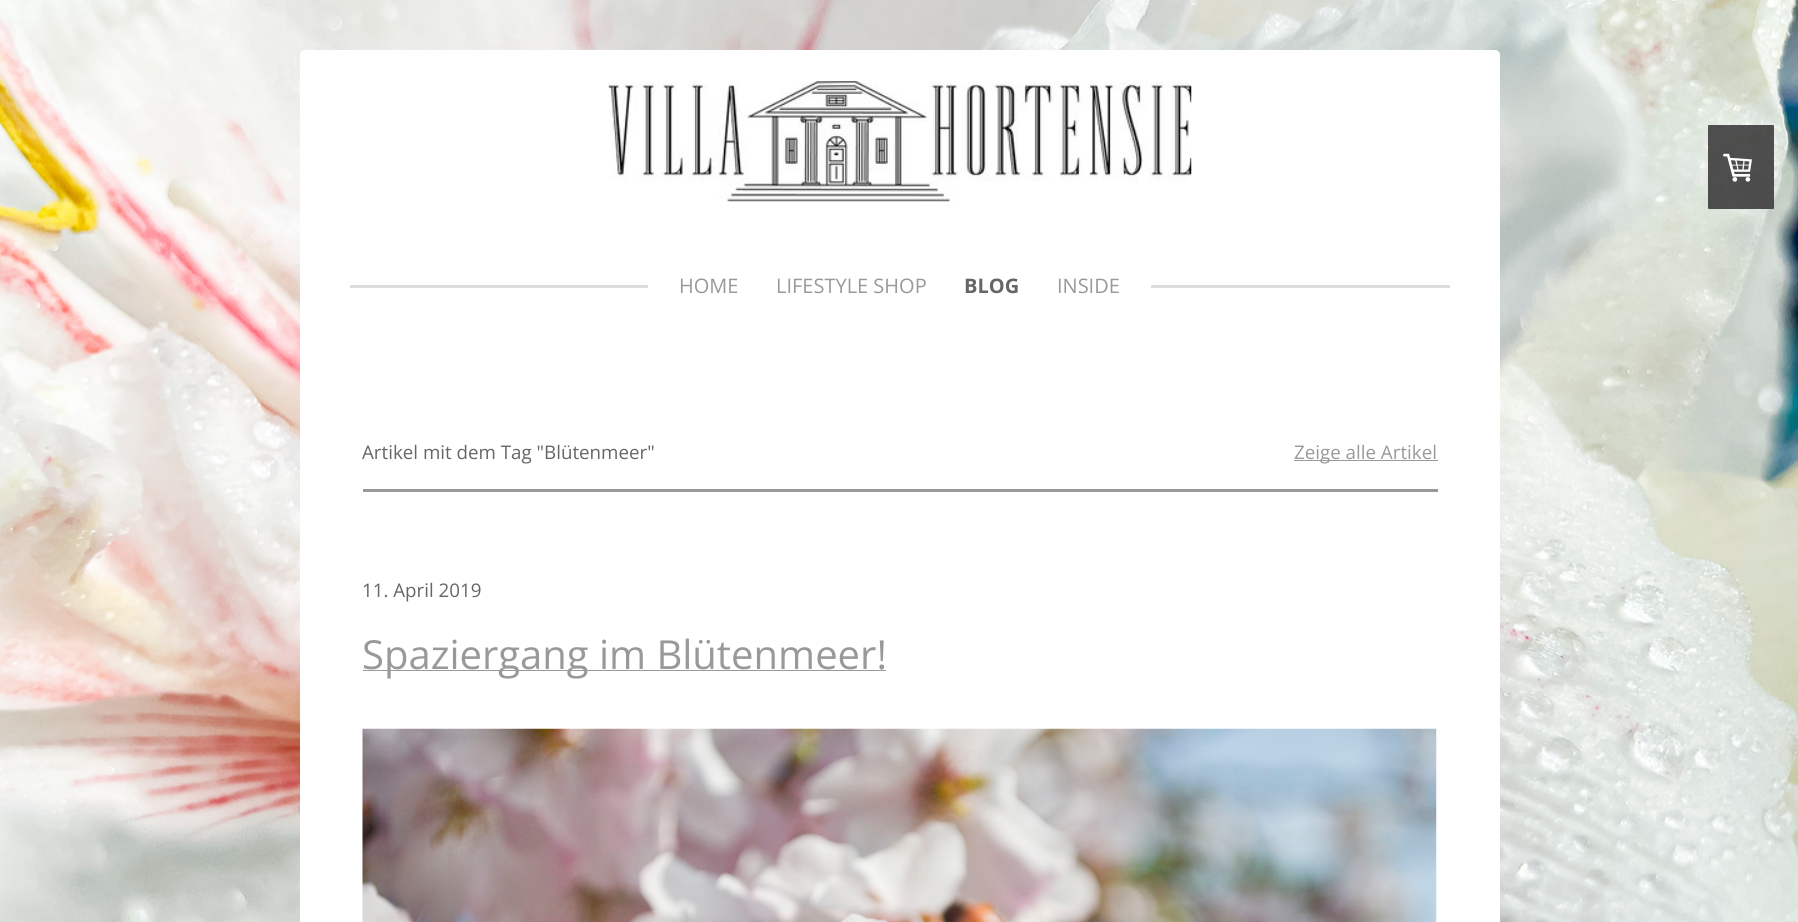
import math
import cairocffi as cairo

surface = cairo.ImageSurface(cairo.FORMAT_RGB24, 1798, 922)
ctx = cairo.Context(surface)
options = cairo.FontOptions()
options.set_hint_metrics(cairo.HINT_METRICS_OFF)
options.set_hint_style(cairo.HINT_STYLE_NONE)
ctx.set_font_options(options)
ctx.set_miter_limit(4)


def rgb(r, g, b):
    ctx.set_source_rgb(r / 255, g / 255, b / 255)


def face(family, size, italic, bold):
    ctx.select_font_face(family, cairo.FONT_SLANT_ITALIC if italic else cairo.FONT_SLANT_NORMAL, cairo.FONT_WEIGHT_BOLD if bold else cairo.FONT_WEIGHT_NORMAL)
    ctx.set_font_size(size)


def label(x, y, s):
    ctx.move_to(x, y)
    ctx.show_text(s)


def rect(x, y, w, h):
    ctx.rectangle(x, y, w, h)
    ctx.fill()


def rrect(x, y, w, h, r):
    ctx.new_sub_path()
    for i, (u, v) in enumerate([(x + w - r, y + h - r), (x + r, y + h - r), (x + r, y + r), (x + w - r, y + r)]):
        ctx.arc(u, v, r, i * math.pi / 2, (i + 1) * math.pi / 2)
    ctx.close_path()


def image(path, x, y, w, h):
    ctx.save()
    ctx.set_source_surface(cairo.ImageSurface.create_from_png(path), x, y)
    ctx.rectangle(x, y, w, h)
    ctx.fill()
    ctx.restore()


rgb(255, 255, 255)
ctx.paint()
image('image0.png', 0, 0, 1798, 922)
rgb(255, 255, 255)
rrect(300, 50, 1200, 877, 5)
ctx.fill()
ctx.set_source_rgba(0.2, 0.2, 0.2, 0.85)
rrect(1708, 125, 66, 84, 1)
ctx.fill()
image('image1.png', 1723, 153, 29, 29)
image('image2.png', 608, 81, 584, 121)
rgb(221, 221, 221)
rect(350, 285, 1100, 3)
rgb(255, 255, 255)
rect(648, 285, 503, 3)
face('Open Sans', 20, 0, 0)
rgb(153, 153, 153)
label(679, 293, 'HOME')
label(776, 293, 'LIFESTYLE SHOP')
face('Open Sans', 20, 0, 1)
rgb(102, 102, 102)
label(964, 293, 'BLOG')
face('Open Sans', 20, 0, 0)
rgb(153, 153, 153)
label(1057, 293, 'INSIDE')
face('Open Sans', 18.75, 0, 0)
rgb(102, 102, 102)
label(362, 459, 'Artikel mit dem Tag "Blütenmeer"')
rgb(153, 153, 153)
rect(1294, 460, 144, 1)
label(1294, 459, 'Zeige alle Artikel')
rect(363, 489, 1075, 3)
rgb(102, 102, 102)
label(362, 597, '11. April 2019')
rgb(153, 153, 153)
rect(363, 670, 523, 1)
face('Open Sans', 40, 0, 0)
label(362, 669, 'Spaziergang im Blütenmeer!')
image('image3.png', 362, 728, 1075, 194)
surface.write_to_png('render.png')
